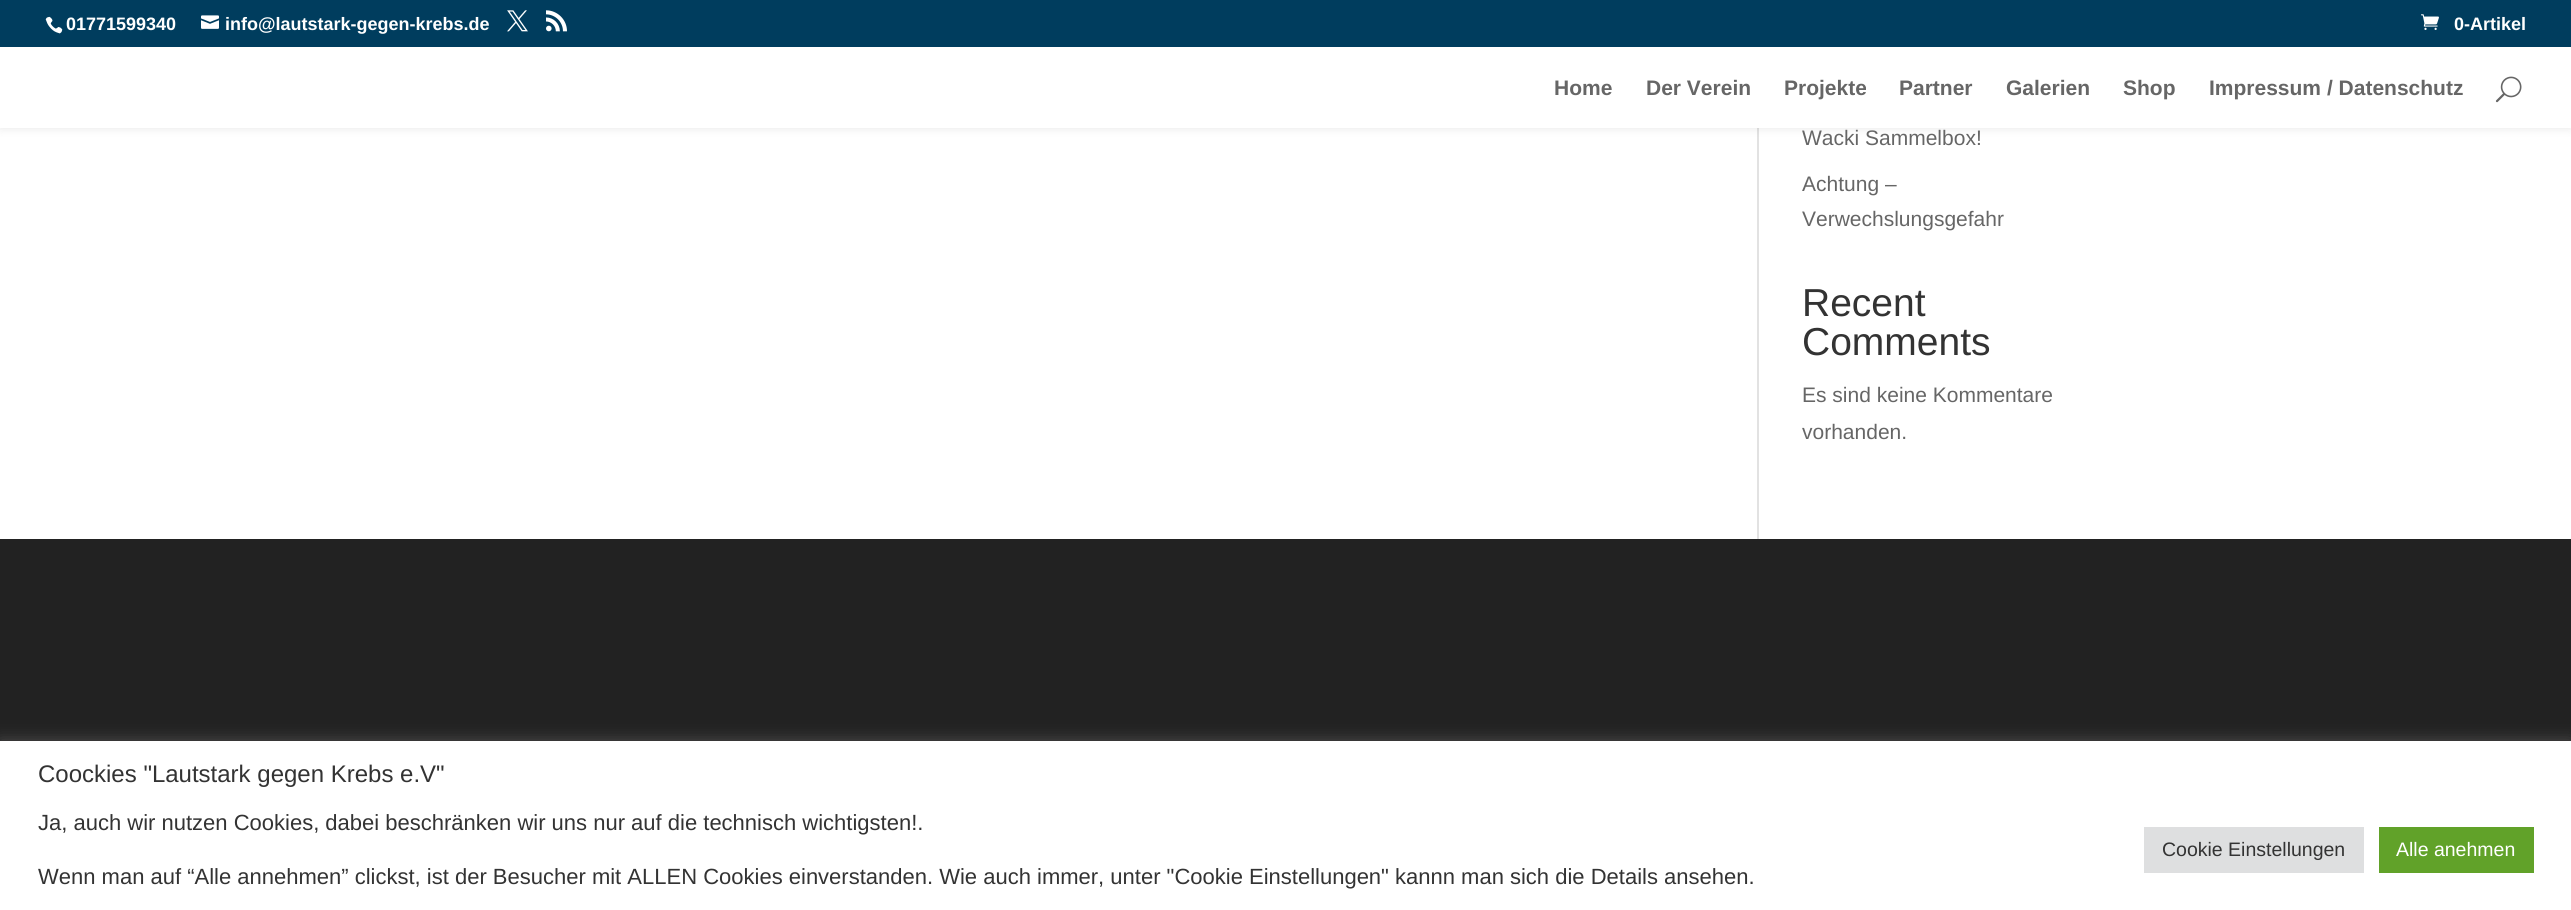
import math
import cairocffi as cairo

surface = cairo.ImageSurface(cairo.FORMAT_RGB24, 2571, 910)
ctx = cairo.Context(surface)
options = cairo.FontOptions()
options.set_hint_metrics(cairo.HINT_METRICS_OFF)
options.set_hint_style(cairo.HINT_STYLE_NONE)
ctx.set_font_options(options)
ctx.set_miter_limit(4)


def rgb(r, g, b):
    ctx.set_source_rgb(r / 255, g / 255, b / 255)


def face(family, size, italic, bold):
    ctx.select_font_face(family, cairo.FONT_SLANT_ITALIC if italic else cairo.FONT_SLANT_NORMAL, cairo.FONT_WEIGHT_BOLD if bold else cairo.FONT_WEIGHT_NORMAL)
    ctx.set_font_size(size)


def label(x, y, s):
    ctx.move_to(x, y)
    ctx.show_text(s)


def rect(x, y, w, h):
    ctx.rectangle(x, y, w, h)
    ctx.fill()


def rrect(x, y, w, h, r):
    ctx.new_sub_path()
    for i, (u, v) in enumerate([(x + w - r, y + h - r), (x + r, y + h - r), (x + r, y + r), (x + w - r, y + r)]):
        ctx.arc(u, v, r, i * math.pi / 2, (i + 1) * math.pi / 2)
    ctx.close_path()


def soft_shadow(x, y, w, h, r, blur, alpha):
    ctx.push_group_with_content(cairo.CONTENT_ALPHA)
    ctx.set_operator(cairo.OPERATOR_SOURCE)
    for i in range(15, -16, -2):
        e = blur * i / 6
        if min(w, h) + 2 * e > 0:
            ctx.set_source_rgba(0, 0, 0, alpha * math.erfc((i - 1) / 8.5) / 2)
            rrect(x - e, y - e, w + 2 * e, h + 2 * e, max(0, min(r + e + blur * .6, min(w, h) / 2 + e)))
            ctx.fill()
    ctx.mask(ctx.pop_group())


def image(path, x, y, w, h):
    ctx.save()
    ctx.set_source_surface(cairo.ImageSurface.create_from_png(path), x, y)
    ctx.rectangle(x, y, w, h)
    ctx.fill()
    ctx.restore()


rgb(255, 255, 255)
ctx.paint()
rgb(226, 226, 226)
rect(1757, 128, 2, 411)
rgb(0, 0, 0)
soft_shadow(0, 47, 2571, 81, 0, 5, 0.1)
rgb(0, 61, 94)
rect(0, 0, 2571, 47)
image('image0.png', 45, 16, 18, 18)
face('Liberation Sans', 18, 0, 1)
rgb(255, 255, 255)
label(66, 30, '01771599340')
image('image1.png', 201, 15, 18, 14)
label(225, 30, 'info@lautstark-gegen-krebs.de')
image('image2.png', 507, 10, 21, 22)
image('image3.png', 546, 10, 21, 22)
image('image4.png', 2421, 14, 18, 16)
label(2454, 30, '0-Artikel')
rect(0, 47, 2571, 81)
face('Liberation Sans', 21, 0, 1)
rgb(102, 102, 102)
label(1554, 95, 'Home')
label(1646, 95, 'Der Verein')
label(1784, 95, 'Projekte')
label(1899, 95, 'Partner')
label(2006, 95, 'Galerien')
label(2123, 95, 'Shop')
label(2209, 95, 'Impressum / Datenschutz')
image('image5.png', 2495, 76, 27, 27)
face('Liberation Sans', 21, 0, 0)
label(1802, 145, 'Wacki Sammelbox!')
label(1802, 191, 'Achtung –')
label(1802, 226, 'Verwechslungsgefahr')
face('Liberation Sans', 39, 0, 0)
rgb(51, 51, 51)
label(1802, 316, 'Recent')
label(1802, 355, 'Comments')
face('Liberation Sans', 21, 0, 0)
rgb(102, 102, 102)
label(1802, 402, 'Es sind keine Kommentare')
label(1802, 439, 'vorhanden.')
rgb(34, 34, 34)
rect(0, 539, 2571, 202)
rgb(172, 171, 171)
soft_shadow(0, 740, 2571, 169, 0, 7.5, 0.3)
rgb(255, 255, 255)
rect(0, 741, 2571, 169)
face('Liberation Sans', 24, 0, 0)
rgb(51, 51, 51)
label(38, 782, 'Coockies "Lautstark gegen Krebs e.V"')
face('Liberation Sans', 22, 0, 0)
label(38, 830, 'Ja, auch wir nutzen Cookies, dabei beschränken wir uns nur auf die technisch wichtigsten!.')
label(38, 884, 'Wenn man auf “Alle annehmen” clickst, ist der Besucher mit ALLEN Cookies einverstanden. Wie auch immer, unter "Cookie Einstellungen" kannn man sich die Details ansehen.')
rgb(222, 223, 224)
rect(2144, 827, 220, 46)
face('Liberation Sans', 19.5, 0, 0)
rgb(51, 51, 51)
label(2162, 856, 'Cookie Einstellungen')
rgb(97, 162, 41)
rect(2379, 827, 155, 46)
rgb(255, 255, 255)
label(2396, 856, 'Alle anehmen')
surface.write_to_png('render.png')
